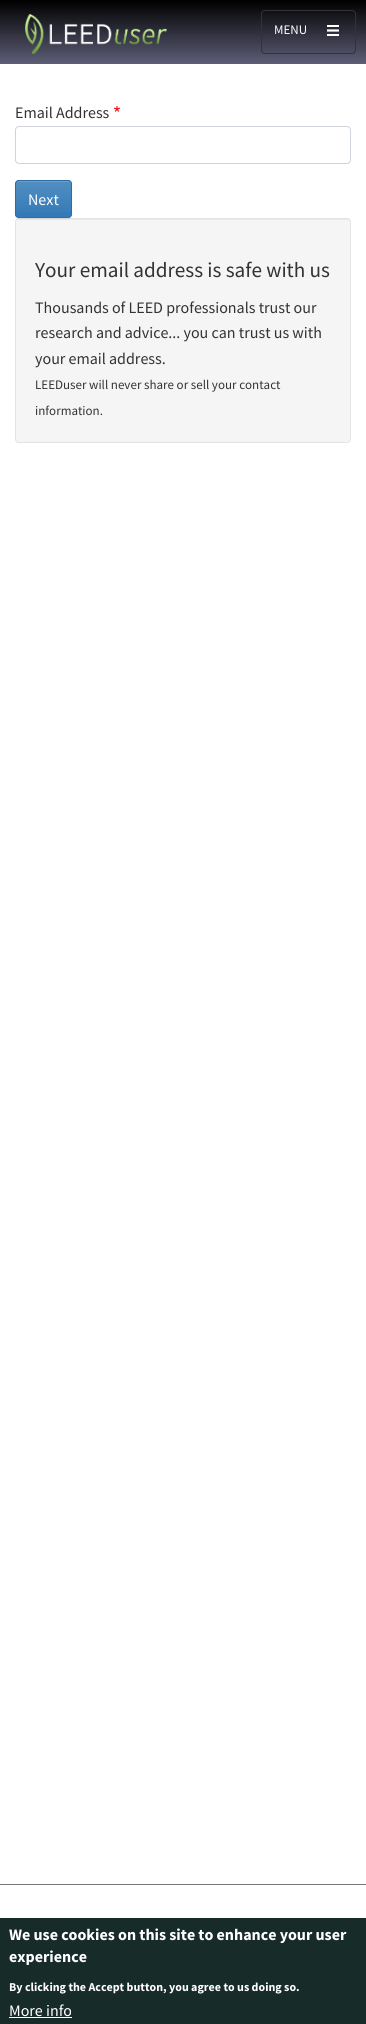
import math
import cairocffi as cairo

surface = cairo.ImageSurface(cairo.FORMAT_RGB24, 366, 2024)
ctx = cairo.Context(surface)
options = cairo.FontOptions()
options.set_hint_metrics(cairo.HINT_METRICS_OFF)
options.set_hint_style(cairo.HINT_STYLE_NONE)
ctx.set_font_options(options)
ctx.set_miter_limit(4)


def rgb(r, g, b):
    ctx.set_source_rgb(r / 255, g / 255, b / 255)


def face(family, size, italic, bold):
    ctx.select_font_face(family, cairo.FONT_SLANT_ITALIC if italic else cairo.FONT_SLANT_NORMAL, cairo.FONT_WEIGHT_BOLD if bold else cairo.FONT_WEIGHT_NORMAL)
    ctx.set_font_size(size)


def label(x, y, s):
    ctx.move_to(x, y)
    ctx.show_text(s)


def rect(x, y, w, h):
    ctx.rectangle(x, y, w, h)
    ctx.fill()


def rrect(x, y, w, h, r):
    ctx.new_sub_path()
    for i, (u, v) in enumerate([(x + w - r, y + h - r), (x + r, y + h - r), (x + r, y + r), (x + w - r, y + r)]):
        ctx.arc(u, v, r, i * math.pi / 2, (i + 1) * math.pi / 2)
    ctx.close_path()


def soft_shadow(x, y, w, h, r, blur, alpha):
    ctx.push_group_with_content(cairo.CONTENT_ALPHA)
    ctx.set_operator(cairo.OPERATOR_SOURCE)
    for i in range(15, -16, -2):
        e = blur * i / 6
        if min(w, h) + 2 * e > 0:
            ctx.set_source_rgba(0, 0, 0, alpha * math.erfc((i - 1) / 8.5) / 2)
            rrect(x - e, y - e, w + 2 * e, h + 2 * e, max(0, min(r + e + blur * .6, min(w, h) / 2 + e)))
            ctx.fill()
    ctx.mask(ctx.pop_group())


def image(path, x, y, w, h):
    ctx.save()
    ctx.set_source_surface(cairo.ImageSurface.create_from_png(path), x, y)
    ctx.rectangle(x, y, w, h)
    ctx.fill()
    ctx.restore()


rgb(255, 255, 255)
ctx.paint()
gradient = cairo.LinearGradient(183, 0, 183, 64)
gradient.add_color_stop_rgba(0, 0, 0, 0, 1)
gradient.add_color_stop_rgba(1, 0.365, 0.365, 0.467, 1)
ctx.set_source(gradient)
rect(0, 0, 366, 64)
image('image0.png', 25, 14, 142, 40)
rrect(261.5, 10.5, 94, 43, 3.5)
rgb(51, 51, 51)
ctx.set_line_width(1)
ctx.stroke()
face('Source Sans Pro', 13, 0, 0)
rgb(255, 255, 255)
label(274, 34, 'MENU')
rect(327, 25, 12, 2)
ctx.save()
ctx.rectangle(327, 25, 12, 11)
ctx.clip()
ctx.new_path()
ctx.move_to(327, 30.5)
ctx.line_to(343, 30.5)
ctx.set_line_width(2.2)
ctx.stroke()
ctx.restore()
rect(327, 34, 12, 2)
face('Source Sans Pro', 16, 0, 0)
rgb(51, 51, 51)
label(15, 118, 'Email Address')
image('image1.png', 114, 106, 6, 6)
rrect(15.5, 126.5, 335, 37, 3.5)
rgb(206, 212, 218)
ctx.stroke()
rgb(245, 245, 245)
rrect(15, 218, 336, 225, 4)
ctx.fill()
rgb(233, 233, 233)
ctx.new_path()
ctx.move_to(19, 220)
ctx.line_to(347, 220)
ctx.curve_to(349, 220, 350, 221, 350, 223)
ctx.curve_to(350, 221, 349, 219, 347, 219)
ctx.line_to(19, 219)
ctx.curve_to(17, 219, 16, 221, 16, 223)
ctx.curve_to(16, 221, 17, 220, 19, 220)
ctx.close_path()
ctx.fill()
rrect(15.5, 218.5, 335, 224, 3.5)
rgb(227, 227, 227)
ctx.stroke()
rgb(0, 0, 0)
soft_shadow(15, 181, 57, 38, 4, 0.5, 0.07)
rgb(51, 122, 183)
rrect(15, 180, 57, 38, 4)
ctx.fill()
gradient = cairo.LinearGradient(44, 181, 44, 217)
gradient.add_color_stop_rgba(0, 1, 1, 1, 0.15)
gradient.add_color_stop_rgba(1, 1, 1, 1, 0)
ctx.set_source(gradient)
rect(15, 181, 57, 31)
rgb(107, 159, 203)
ctx.new_path()
ctx.move_to(19, 182)
ctx.line_to(68, 182)
ctx.curve_to(70, 182, 71, 183, 71, 185)
ctx.curve_to(71, 179, 64, 181, 60, 181)
ctx.line_to(27, 181)
ctx.curve_to(23, 181, 16, 179, 16, 185)
ctx.curve_to(16, 183, 17, 182, 19, 182)
ctx.close_path()
ctx.fill()
rrect(15.5, 180.5, 56, 37, 3.5)
rgb(46, 109, 164)
ctx.stroke()
rgb(255, 255, 255)
label(28, 205, 'Next')
face('Source Sans Pro', 21.2, 0, 0)
rgb(51, 51, 51)
label(35, 277, 'Your email address is safe with us')
face('Source Sans Pro', 16, 0, 0)
label(35, 313, 'Thousands of LEED professionals trust our')
label(35, 338, 'research and advice... you can trust us with')
label(35, 364, 'your email address.')
face('Source Sans Pro', 13, 0, 0)
label(35, 389, 'LEEDuser will never share or sell your contact')
label(35, 415, 'information.')
rgb(119, 119, 119)
rect(0, 1884, 366, 1)
rgb(23, 44, 41)
rect(0, 1918, 366, 106)
face('Source Sans Pro', 16, 0, 1)
rgb(255, 255, 255)
label(9, 1940, 'We use cookies on this site to enhance your user')
label(9, 1962, 'experience')
face('Source Sans Pro', 12, 0, 1)
label(9, 1991, 'By clicking the Accept button, you agree to us doing so.')
face('Source Sans Pro', 16, 0, 0)
label(9, 2016, 'More info')
rect(9, 2017, 63, 1)
surface.write_to_png('render.png')
